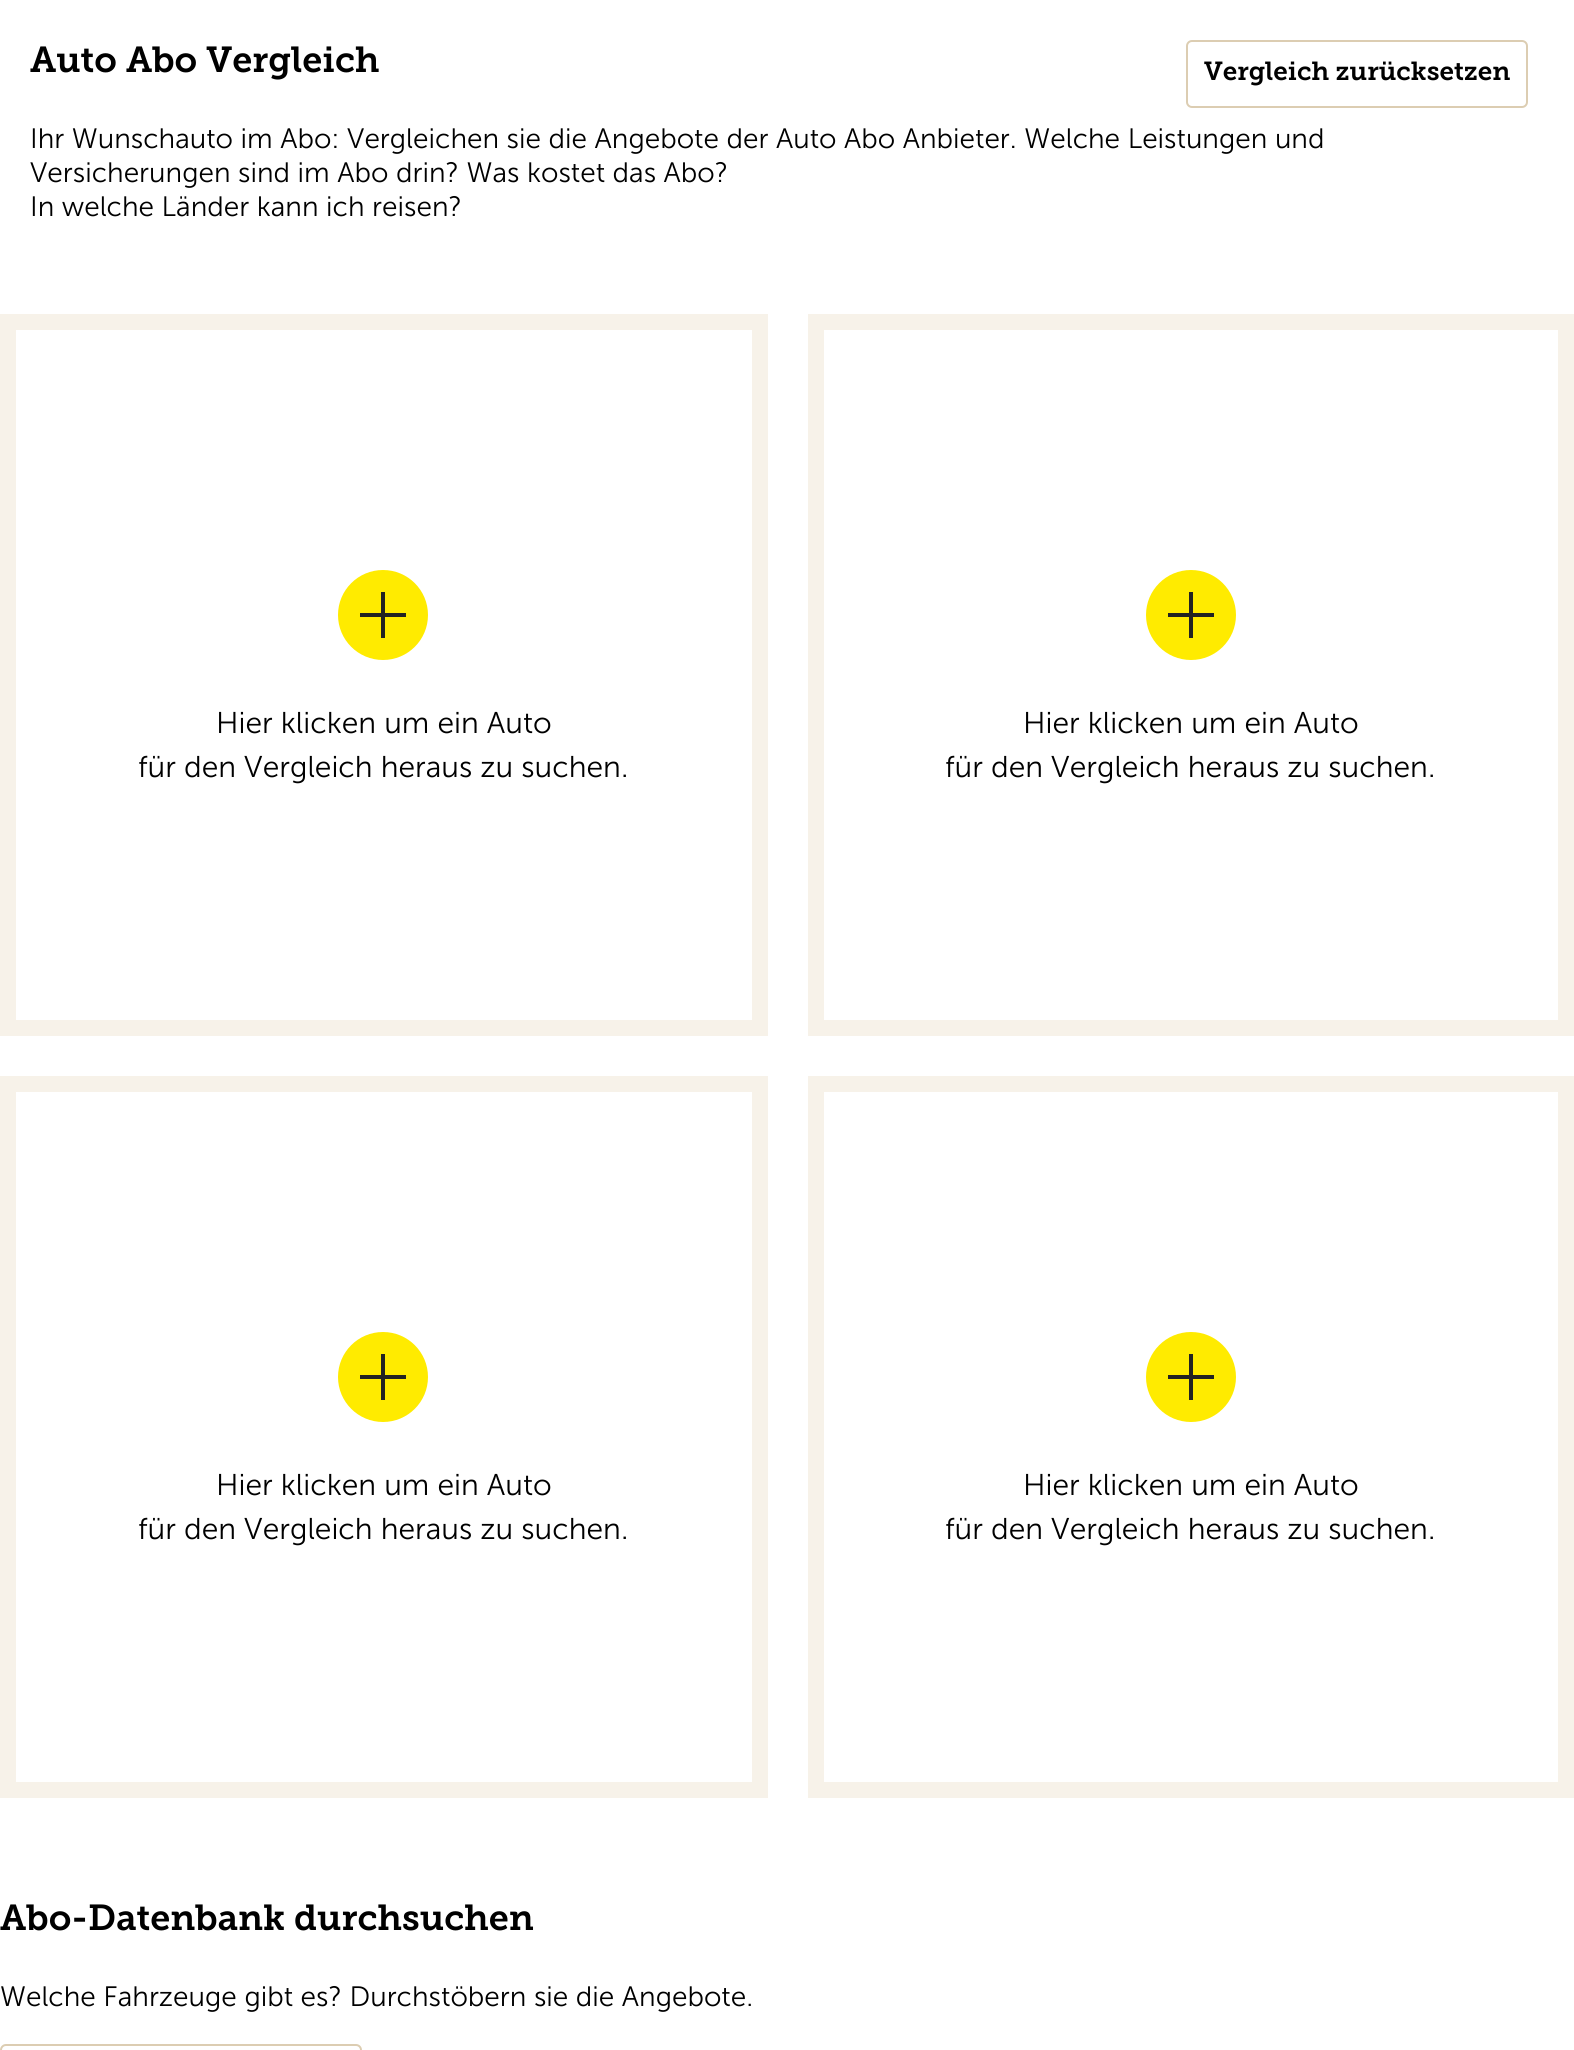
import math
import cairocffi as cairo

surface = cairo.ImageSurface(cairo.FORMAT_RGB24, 1574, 2050)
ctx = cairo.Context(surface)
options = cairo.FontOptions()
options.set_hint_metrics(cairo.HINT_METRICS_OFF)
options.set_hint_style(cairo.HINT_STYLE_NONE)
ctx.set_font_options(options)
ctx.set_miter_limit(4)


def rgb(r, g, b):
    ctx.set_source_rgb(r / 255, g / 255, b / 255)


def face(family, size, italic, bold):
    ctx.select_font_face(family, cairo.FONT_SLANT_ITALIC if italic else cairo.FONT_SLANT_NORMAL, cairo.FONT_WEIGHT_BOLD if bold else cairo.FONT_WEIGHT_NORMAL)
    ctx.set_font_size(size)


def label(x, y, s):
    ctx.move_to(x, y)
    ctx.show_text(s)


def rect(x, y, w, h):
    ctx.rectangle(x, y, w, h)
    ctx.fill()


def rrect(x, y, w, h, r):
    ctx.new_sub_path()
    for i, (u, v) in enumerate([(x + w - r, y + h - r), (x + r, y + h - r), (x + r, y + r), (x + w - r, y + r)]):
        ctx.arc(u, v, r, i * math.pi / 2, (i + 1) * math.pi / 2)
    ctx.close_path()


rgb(255, 255, 255)
ctx.paint()
face('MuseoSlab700', 36, 0, 0)
rgb(0, 0, 0)
label(30, 72, 'Auto Abo Vergleich')
rrect(1187, 41, 340, 66, 5)
rgb(220, 205, 178)
ctx.stroke()
face('MuseoSlab700', 26, 0, 0)
rgb(0, 0, 0)
label(1204, 80, 'Vergleich zurücksetzen')
face('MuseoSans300', 28, 0, 0)
label(30, 148, 'Ihr Wunschauto im Abo: Vergleichen sie die Angebote der Auto Abo Anbieter. Welche Leistungen und')
label(30, 182, 'Versicherungen sind im Abo drin? Was kostet das Abo?')
label(30, 216, 'In welche Länder kann ich reisen?')
ctx.rectangle(8, 322, 752, 706)
rgb(247, 242, 233)
ctx.set_line_width(16)
ctx.stroke()
rgb(255, 235, 0)
ctx.arc(383, 615, 45, 0, 2 * math.pi)
ctx.fill()
rgb(34, 34, 34)
rect(381, 592, 4, 46)
rect(360, 613, 46, 4)
face('MuseoSans300', 30, 0, 0)
rgb(0, 0, 0)
label(216, 733, 'Hier klicken um ein Auto')
label(138, 777, 'für den Vergleich heraus zu suchen.')
ctx.rectangle(816, 322, 750, 706)
rgb(247, 242, 233)
ctx.stroke()
rgb(255, 235, 0)
ctx.arc(1191, 615, 45, 0, 2 * math.pi)
ctx.fill()
rgb(34, 34, 34)
rect(1189, 592, 4, 46)
rect(1168, 613, 46, 4)
rgb(0, 0, 0)
label(1023, 733, 'Hier klicken um ein Auto')
label(945, 777, 'für den Vergleich heraus zu suchen.')
ctx.rectangle(8, 1084, 752, 706)
rgb(247, 242, 233)
ctx.stroke()
rgb(255, 235, 0)
ctx.arc(383, 1377, 45, 0, 2 * math.pi)
ctx.fill()
rgb(34, 34, 34)
rect(381, 1354, 4, 46)
rect(360, 1375, 46, 4)
rgb(0, 0, 0)
label(216, 1495, 'Hier klicken um ein Auto')
label(138, 1539, 'für den Vergleich heraus zu suchen.')
ctx.rectangle(816, 1084, 750, 706)
rgb(247, 242, 233)
ctx.stroke()
rgb(255, 235, 0)
ctx.arc(1191, 1377, 45, 0, 2 * math.pi)
ctx.fill()
rgb(34, 34, 34)
rect(1189, 1354, 4, 46)
rect(1168, 1375, 46, 4)
rgb(0, 0, 0)
label(1023, 1495, 'Hier klicken um ein Auto')
label(945, 1539, 'für den Vergleich heraus zu suchen.')
face('MuseoSlab700', 36, 0, 0)
label(0, 1930, 'Abo-Datenbank durchsuchen')
face('MuseoSans300', 28, 0, 0)
label(0, 2006, 'Welche Fahrzeuge gibt es? Durchstöbern sie die Angebote.')
rrect(1, 2045, 360, 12, 5)
rgb(220, 205, 178)
ctx.set_line_width(2)
ctx.stroke()
surface.write_to_png('render.png')
